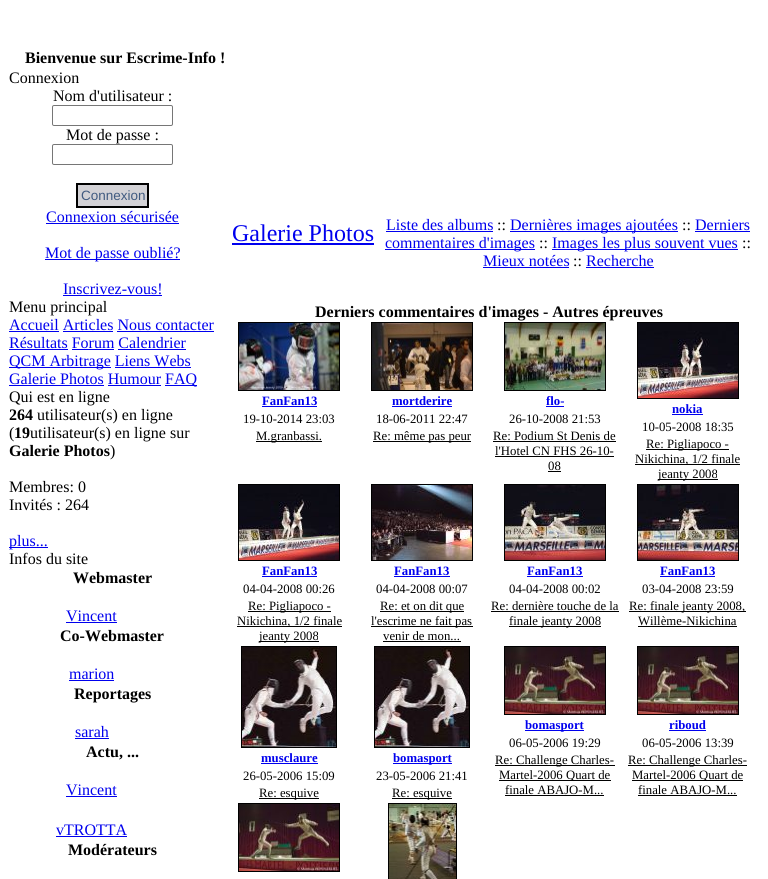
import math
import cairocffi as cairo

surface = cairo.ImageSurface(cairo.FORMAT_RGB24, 768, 879)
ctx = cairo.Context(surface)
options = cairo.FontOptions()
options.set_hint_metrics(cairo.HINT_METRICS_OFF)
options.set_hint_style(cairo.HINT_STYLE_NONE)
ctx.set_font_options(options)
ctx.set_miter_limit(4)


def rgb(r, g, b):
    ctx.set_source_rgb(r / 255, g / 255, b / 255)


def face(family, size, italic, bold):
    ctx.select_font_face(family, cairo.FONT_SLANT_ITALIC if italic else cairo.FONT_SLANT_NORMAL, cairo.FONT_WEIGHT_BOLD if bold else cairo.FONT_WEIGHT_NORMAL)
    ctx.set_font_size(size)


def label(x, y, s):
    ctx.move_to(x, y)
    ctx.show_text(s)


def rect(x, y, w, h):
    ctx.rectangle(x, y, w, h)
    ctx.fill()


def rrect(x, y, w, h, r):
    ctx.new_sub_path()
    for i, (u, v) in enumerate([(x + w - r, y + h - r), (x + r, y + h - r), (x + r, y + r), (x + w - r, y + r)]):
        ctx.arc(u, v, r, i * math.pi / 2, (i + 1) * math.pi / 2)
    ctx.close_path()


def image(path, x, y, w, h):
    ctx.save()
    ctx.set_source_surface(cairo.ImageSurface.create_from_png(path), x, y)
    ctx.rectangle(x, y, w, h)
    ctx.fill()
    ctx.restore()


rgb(255, 255, 255)
ctx.paint()
face('Liberation Serif', 16, 0, 1)
rgb(0, 0, 0)
label(25, 63, 'Bienvenue sur Escrime-Info !')
face('Liberation Serif', 16, 0, 0)
label(9, 83, 'Connexion')
label(53, 101, 'Nom d\'utilisateur :')
rrect(52.5, 105.5, 120, 20, 1.5)
rgb(118, 118, 118)
ctx.set_line_width(1)
ctx.stroke()
rgb(0, 0, 0)
label(66, 140, 'Mot de passe :')
rrect(52.5, 144.5, 120, 20, 1.5)
rgb(118, 118, 118)
ctx.stroke()
rgb(211, 210, 214)
ctx.rectangle(77, 184, 71, 23)
ctx.fill_preserve()
rgb(0, 0, 0)
ctx.set_line_width(2)
ctx.stroke()
face('Liberation Sans', 13.5, 0, 0)
rgb(64, 90, 128)
label(81, 200, 'Connexion')
face('Liberation Serif', 16, 0, 0)
rgb(0, 0, 238)
label(46, 222, 'Connexion sécurisée')
rect(46, 223, 133, 1)
rect(45, 259, 135, 1)
label(45, 258, 'Mot de passe oublié?')
label(63, 294, 'Inscrivez-vous!')
rect(63, 295, 99, 1)
rgb(0, 0, 0)
label(9, 312, 'Menu principal')
rgb(0, 0, 238)
label(9, 330, 'Accueil Articles Nous contacter')
rect(9, 331, 50, 1)
rect(63, 331, 50, 1)
rect(117, 331, 97, 1)
label(9, 348, 'Résultats Forum Calendrier')
rect(9, 349, 59, 1)
rect(72, 349, 42, 1)
rect(118, 349, 68, 1)
rect(9, 367, 102, 1)
label(9, 366, 'QCM Arbitrage Liens Webs')
rect(115, 367, 76, 1)
label(9, 384, 'Galerie Photos Humour')
rect(9, 385, 95, 1)
rect(165, 385, 32, 1)
label(165, 384, 'FAQ')
rect(108, 385, 53, 1)
rgb(0, 0, 0)
label(9, 402, 'Qui est en ligne')
face('Liberation Serif', 16, 0, 1)
label(9, 420, '264')
face('Liberation Serif', 16, 0, 0)
label(37, 420, 'utilisateur(s) en ligne')
label(9, 438, '(')
face('Liberation Serif', 16, 0, 1)
label(14, 438, '19')
face('Liberation Serif', 16, 0, 0)
label(30, 438, 'utilisateur(s) en ligne sur')
face('Liberation Serif', 16, 0, 1)
label(9, 456, 'Galerie Photos')
face('Liberation Serif', 16, 0, 0)
label(110, 456, ')')
label(9, 492, 'Membres: 0')
label(9, 510, 'Invités : 264')
rgb(0, 0, 238)
rect(9, 547, 39, 1)
label(9, 546, 'plus...')
rgb(0, 0, 0)
label(9, 564, 'Infos du site')
face('Liberation Serif', 16, 0, 1)
label(73, 583, 'Webmaster')
face('Liberation Serif', 16, 0, 0)
rgb(0, 0, 238)
label(66, 621, 'Vincent')
rect(66, 622, 51, 1)
face('Liberation Serif', 16, 0, 1)
rgb(0, 0, 0)
label(60, 641, 'Co-Webmaster')
face('Liberation Serif', 16, 0, 0)
rgb(0, 0, 238)
label(69, 679, 'marion')
rect(69, 680, 45, 1)
face('Liberation Serif', 16, 0, 1)
rgb(0, 0, 0)
label(74, 699, 'Reportages')
face('Liberation Serif', 16, 0, 0)
rgb(0, 0, 238)
label(75, 737, 'sarah')
rect(75, 738, 34, 1)
face('Liberation Serif', 16, 0, 1)
rgb(0, 0, 0)
label(86, 757, 'Actu, ...')
face('Liberation Serif', 16, 0, 0)
rgb(0, 0, 238)
label(66, 795, 'Vincent')
rect(66, 796, 51, 1)
label(56, 835, 'vTROTTA')
rect(56, 836, 71, 1)
face('Liberation Serif', 16, 0, 1)
rgb(0, 0, 0)
label(68, 855, 'Modérateurs')
face('Liberation Serif', 24, 0, 0)
rgb(0, 0, 238)
label(232, 241, 'Galerie Photos')
rect(232, 243, 142, 2)
face('Liberation Serif', 16, 0, 0)
label(386, 230, 'Liste des albums')
rect(386, 231, 107, 1)
rgb(0, 0, 0)
label(497, 230, '::')
rgb(0, 0, 238)
rect(510, 231, 168, 1)
label(510, 230, 'Dernières images ajoutées')
rgb(0, 0, 0)
label(682, 230, '::')
rgb(0, 0, 238)
label(695, 230, 'Derniers')
rect(695, 231, 55, 1)
rect(385, 249, 150, 1)
label(385, 248, 'commentaires d\'images')
rgb(0, 0, 0)
label(539, 248, '::')
rgb(0, 0, 238)
rect(552, 249, 186, 1)
label(552, 248, 'Images les plus souvent vues')
rgb(0, 0, 0)
label(742, 248, '::')
rgb(0, 0, 238)
label(483, 266, 'Mieux notées')
rect(483, 267, 86, 1)
rgb(0, 0, 0)
label(573, 266, '::')
rgb(0, 0, 238)
label(586, 266, 'Recherche')
rect(586, 267, 68, 1)
face('Liberation Serif', 16, 0, 1)
rgb(0, 0, 0)
label(315, 317, 'Derniers commentaires d\'images - Autres épreuves')
ctx.rectangle(238.5, 322.5, 101, 68)
ctx.set_line_width(1)
ctx.stroke()
image('image0.png', 239, 323, 100, 67)
face('Liberation Serif', 12.75, 0, 1)
rgb(0, 0, 238)
label(262, 405, 'FanFan13')
rect(262, 406, 55, 1)
face('Liberation Serif', 12.75, 0, 0)
rgb(0, 0, 0)
label(243, 423, '19-10-2014 23:03')
rect(256, 441, 66, 1)
label(256, 440, 'M.granbassi.')
ctx.rectangle(371.5, 322.5, 101, 68)
ctx.stroke()
image('image1.png', 372, 323, 100, 67)
face('Liberation Serif', 12.75, 0, 1)
rgb(0, 0, 238)
label(392, 405, 'mortderire')
rect(392, 406, 60, 1)
face('Liberation Serif', 12.75, 0, 0)
rgb(0, 0, 0)
label(376, 423, '18-06-2011 22:47')
rect(373, 441, 98, 1)
label(373, 440, 'Re: même pas peur')
ctx.rectangle(504.5, 322.5, 101, 68)
ctx.stroke()
image('image2.png', 505, 323, 100, 67)
face('Liberation Serif', 12.75, 0, 1)
rgb(0, 0, 238)
label(546, 405, 'flo-')
rect(546, 406, 18, 1)
face('Liberation Serif', 12.75, 0, 0)
rgb(0, 0, 0)
label(509, 423, '26-10-2008 21:53')
label(493, 440, 'Re: Podium St Denis de')
rect(493, 441, 123, 1)
label(495, 455, 'l\'Hotel CN FHS 26-10-')
rect(495, 456, 119, 1)
label(548, 470, '08')
rect(548, 471, 13, 1)
ctx.rectangle(637.5, 322.5, 101, 76)
ctx.stroke()
image('image3.png', 638, 323, 100, 75)
face('Liberation Serif', 12.75, 0, 1)
rgb(0, 0, 238)
label(672, 413, 'nokia')
rect(672, 414, 31, 1)
face('Liberation Serif', 12.75, 0, 0)
rgb(0, 0, 0)
label(642, 431, '10-05-2008 18:35')
rect(646, 449, 83, 1)
label(646, 448, 'Re: Pigliapoco -')
rect(635, 464, 105, 1)
label(635, 463, 'Nikichina, 1/2 finale')
rect(658, 479, 60, 1)
label(658, 478, 'jeanty 2008')
ctx.rectangle(238.5, 484.5, 101, 76)
ctx.stroke()
image('image3.png', 239, 485, 100, 75)
face('Liberation Serif', 12.75, 0, 1)
rgb(0, 0, 238)
label(262, 575, 'FanFan13')
rect(262, 576, 55, 1)
face('Liberation Serif', 12.75, 0, 0)
rgb(0, 0, 0)
label(243, 593, '04-04-2008 00:26')
rect(248, 611, 83, 1)
label(248, 610, 'Re: Pigliapoco -')
rect(237, 626, 105, 1)
label(237, 625, 'Nikichina, 1/2 finale')
rect(259, 641, 60, 1)
label(259, 640, 'jeanty 2008')
ctx.rectangle(371.5, 484.5, 101, 76)
ctx.stroke()
image('image4.png', 372, 485, 100, 75)
face('Liberation Serif', 12.75, 0, 1)
rgb(0, 0, 238)
label(394, 575, 'FanFan13')
rect(394, 576, 56, 1)
face('Liberation Serif', 12.75, 0, 0)
rgb(0, 0, 0)
label(376, 593, '04-04-2008 00:07')
rect(380, 611, 84, 1)
label(380, 610, 'Re: et on dit que')
rect(371, 626, 102, 1)
label(371, 625, 'l\'escrime ne fait pas')
label(383, 640, 'venir de mon...')
rect(383, 641, 78, 1)
ctx.rectangle(504.5, 484.5, 101, 76)
ctx.stroke()
image('image5.png', 505, 485, 100, 75)
face('Liberation Serif', 12.75, 0, 1)
rgb(0, 0, 238)
label(527, 575, 'FanFan13')
rect(527, 576, 56, 1)
face('Liberation Serif', 12.75, 0, 0)
rgb(0, 0, 0)
label(509, 593, '04-04-2008 00:02')
label(491, 610, 'Re: dernière touche de la')
rect(491, 611, 128, 1)
rect(509, 626, 92, 1)
label(509, 625, 'finale jeanty 2008')
ctx.rectangle(637.5, 484.5, 101, 76)
ctx.stroke()
image('image6.png', 638, 485, 100, 75)
face('Liberation Serif', 12.75, 0, 1)
rgb(0, 0, 238)
label(660, 575, 'FanFan13')
rect(660, 576, 55, 1)
face('Liberation Serif', 12.75, 0, 0)
rgb(0, 0, 0)
label(642, 593, '03-04-2008 23:59')
rect(629, 611, 117, 1)
label(629, 610, 'Re: finale jeanty 2008,')
label(638, 625, 'Willème-Nikichina')
rect(638, 626, 99, 1)
ctx.rectangle(241.5, 646.5, 95, 101)
ctx.stroke()
image('image7.png', 242, 647, 94, 100)
face('Liberation Serif', 12.75, 0, 1)
rgb(0, 0, 238)
label(261, 762, 'musclaure')
rect(261, 763, 57, 1)
face('Liberation Serif', 12.75, 0, 0)
rgb(0, 0, 0)
label(243, 780, '26-05-2006 15:09')
rect(259, 798, 60, 1)
label(259, 797, 'Re: esquive')
ctx.rectangle(374.5, 646.5, 95, 101)
ctx.stroke()
image('image7.png', 375, 647, 94, 100)
rgb(0, 0, 238)
rect(393, 763, 59, 1)
face('Liberation Serif', 12.75, 0, 1)
label(393, 762, 'bomasport')
face('Liberation Serif', 12.75, 0, 0)
rgb(0, 0, 0)
label(376, 780, '23-05-2006 21:41')
rect(392, 798, 60, 1)
label(392, 797, 'Re: esquive')
ctx.rectangle(504.5, 646.5, 101, 68)
ctx.stroke()
image('image8.png', 505, 647, 100, 67)
rgb(0, 0, 238)
rect(525, 730, 59, 1)
face('Liberation Serif', 12.75, 0, 1)
label(525, 729, 'bomasport')
face('Liberation Serif', 12.75, 0, 0)
rgb(0, 0, 0)
label(509, 747, '06-05-2006 19:29')
rect(495, 765, 120, 1)
label(495, 764, 'Re: Challenge Charles-')
rect(499, 780, 112, 1)
label(499, 779, 'Martel-2006 Quart de')
label(505, 794, 'finale ABAJO-M...')
rect(505, 795, 99, 1)
ctx.rectangle(637.5, 646.5, 101, 68)
ctx.stroke()
image('image8.png', 638, 647, 100, 67)
face('Liberation Serif', 12.75, 0, 1)
rgb(0, 0, 238)
label(669, 729, 'riboud')
rect(669, 730, 37, 1)
face('Liberation Serif', 12.75, 0, 0)
rgb(0, 0, 0)
label(642, 747, '06-05-2006 13:39')
rect(628, 765, 119, 1)
label(628, 764, 'Re: Challenge Charles-')
rect(632, 780, 111, 1)
label(632, 779, 'Martel-2006 Quart de')
label(638, 794, 'finale ABAJO-M...')
rect(638, 795, 99, 1)
ctx.rectangle(238.5, 803.5, 101, 68)
ctx.stroke()
image('image8.png', 239, 804, 100, 67)
ctx.rectangle(388.5, 803.5, 68, 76)
ctx.stroke()
image('image9.png', 389, 804, 67, 75)
surface.write_to_png('render.png')
